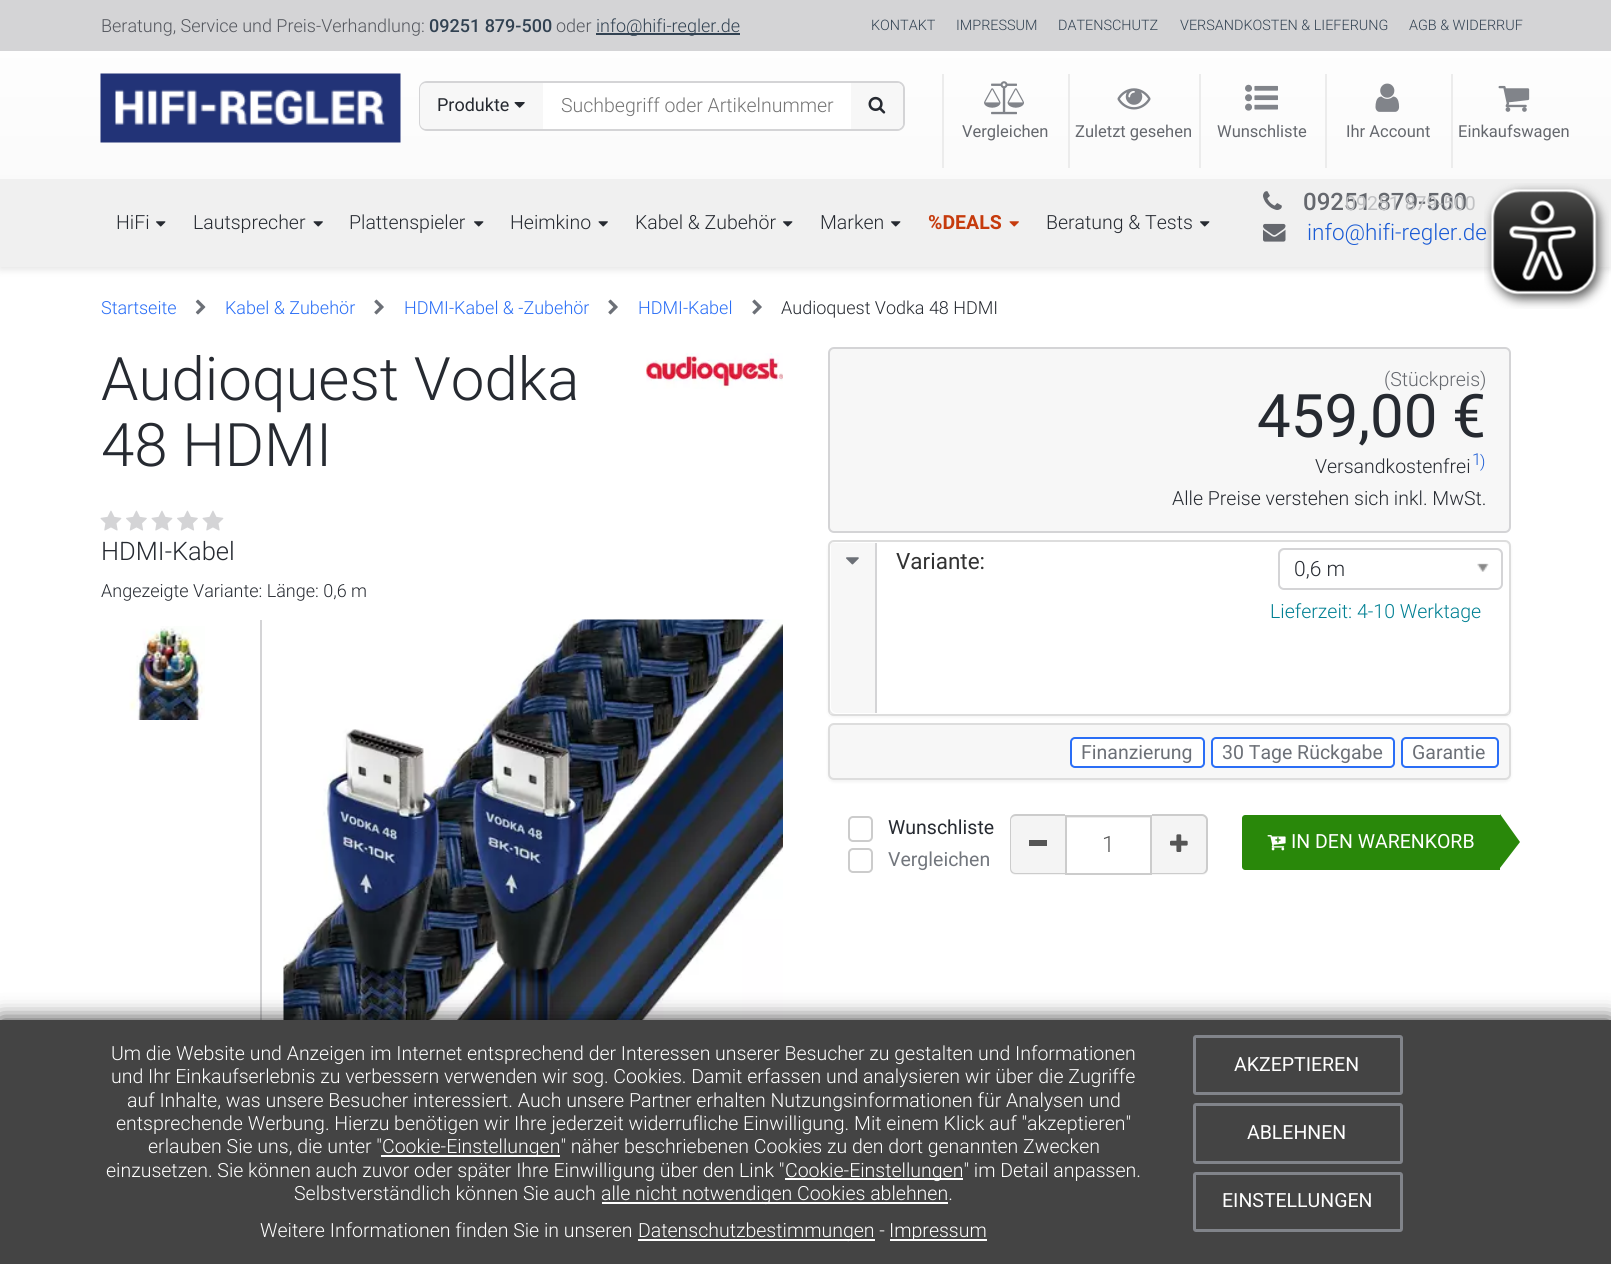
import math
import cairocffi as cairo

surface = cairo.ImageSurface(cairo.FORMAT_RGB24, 1611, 1264)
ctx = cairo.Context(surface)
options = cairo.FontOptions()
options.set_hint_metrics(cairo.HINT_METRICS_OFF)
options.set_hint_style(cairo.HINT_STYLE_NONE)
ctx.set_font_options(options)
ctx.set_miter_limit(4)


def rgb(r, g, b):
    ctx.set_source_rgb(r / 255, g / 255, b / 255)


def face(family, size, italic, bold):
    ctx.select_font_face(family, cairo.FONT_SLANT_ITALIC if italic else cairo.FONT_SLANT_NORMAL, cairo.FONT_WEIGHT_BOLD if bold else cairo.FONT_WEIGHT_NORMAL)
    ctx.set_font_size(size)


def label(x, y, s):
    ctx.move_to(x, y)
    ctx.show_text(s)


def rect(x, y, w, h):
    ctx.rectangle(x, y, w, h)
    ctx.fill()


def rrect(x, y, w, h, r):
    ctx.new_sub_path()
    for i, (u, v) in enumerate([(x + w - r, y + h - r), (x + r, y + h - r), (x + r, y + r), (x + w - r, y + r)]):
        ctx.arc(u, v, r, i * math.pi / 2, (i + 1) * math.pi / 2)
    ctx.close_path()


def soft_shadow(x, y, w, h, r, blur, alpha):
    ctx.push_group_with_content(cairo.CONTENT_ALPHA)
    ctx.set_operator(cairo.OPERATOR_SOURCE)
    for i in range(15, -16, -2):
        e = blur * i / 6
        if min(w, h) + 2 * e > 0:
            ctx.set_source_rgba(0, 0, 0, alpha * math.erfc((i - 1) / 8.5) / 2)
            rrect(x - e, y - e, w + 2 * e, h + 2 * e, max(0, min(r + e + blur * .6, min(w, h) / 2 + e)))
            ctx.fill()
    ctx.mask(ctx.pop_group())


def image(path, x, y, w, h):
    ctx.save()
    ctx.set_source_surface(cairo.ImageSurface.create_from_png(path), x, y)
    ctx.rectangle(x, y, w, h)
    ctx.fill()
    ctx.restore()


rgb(255, 255, 255)
ctx.paint()
rgb(0, 0, 0)
soft_shadow(0, 2, 1611, 267, 0, 4.5, 0.12)
gradient = cairo.LinearGradient(806, 0, 806, 267)
gradient.add_color_stop_rgba(0, 1, 1, 1, 1)
gradient.add_color_stop_rgba(1, 0.973, 0.973, 0.973, 1)
ctx.set_source(gradient)
rect(0, 51, 1611, 128)
rgb(212, 212, 214)
rect(0, 0, 1611, 51)
face('Roboto Light', 18, 0, 0)
rgb(84, 87, 94)
label(101, 32, 'Beratung, Service und Preis-Verhandlung:')
face('Roboto Medium', 18, 0, 0)
rgb(50, 66, 82)
label(429, 32, '09251 879-500')
face('Roboto Light', 18, 0, 0)
rgb(84, 87, 94)
label(556, 32, 'oder')
rgb(50, 66, 82)
rect(596, 33, 144, 2)
label(596, 32, 'info@hifi-regler.de')
face('Roboto Light', 14.4, 0, 0)
label(871, 30, 'KONTAKT')
label(956, 30, 'IMPRESSUM')
label(1058, 30, 'DATENSCHUTZ')
label(1180, 30, 'VERSANDKOSTEN & LIEFERUNG')
label(1409, 30, 'AGB & WIDERRUF')
image('image0.png', 100, 73, 301, 70)
rgb(255, 255, 255)
rrect(420, 82, 484, 48, 7)
ctx.fill_preserve()
rgb(212, 212, 214)
ctx.stroke()
rgb(247, 247, 247)
ctx.new_path()
ctx.move_to(426, 83)
ctx.line_to(543, 83)
ctx.line_to(543, 129)
ctx.line_to(426, 129)
ctx.curve_to(422.5, 129, 420, 126.5, 420, 123)
ctx.line_to(420, 89)
ctx.curve_to(420, 85.5, 422.5, 83, 426, 83)
ctx.close_path()
ctx.fill()
face('Roboto', 18, 0, 0)
rgb(38, 42, 49)
label(437, 111, 'Produkte')
image('image1.png', 514, 102, 11, 6)
face('Roboto Light', 19.5, 0, 0)
rgb(117, 117, 117)
label(561, 112, 'Suchbegriff oder Artikelnummer')
rgb(247, 247, 247)
ctx.new_path()
ctx.move_to(851, 83)
ctx.line_to(897, 83)
ctx.curve_to(900.5, 83, 903, 85.5, 903, 89)
ctx.line_to(903, 123)
ctx.curve_to(903, 126.5, 900.5, 129, 897, 129)
ctx.line_to(851, 129)
ctx.close_path()
ctx.fill()
image('image2.png', 868, 96, 18, 18)
rgb(236, 236, 236)
rect(942, 74, 2, 94)
image('image3.png', 984, 81, 40, 34)
face('Roboto', 16.5, 0, 0)
rgb(101, 104, 110)
label(962, 137, 'Vergleichen')
rgb(236, 236, 236)
rect(1068, 74, 2, 94)
image('image4.png', 1117, 88, 34, 22)
rgb(101, 104, 110)
label(1075, 137, 'Zuletzt gesehen')
rgb(236, 236, 236)
rect(1199, 74, 2, 94)
image('image5.png', 1245, 84, 33, 27)
rgb(101, 104, 110)
label(1217, 137, 'Wunschliste')
rgb(236, 236, 236)
rect(1325, 74, 2, 94)
image('image6.png', 1375, 83, 25, 29)
rgb(101, 104, 110)
label(1346, 137, 'Ihr Account')
rgb(236, 236, 236)
rect(1451, 74, 2, 94)
image('image7.png', 1498, 85, 32, 27)
rgb(101, 104, 110)
label(1458, 137, 'Einkaufswagen')
rgb(240, 240, 240)
rect(0, 179, 1611, 88)
image('image8.png', 1263, 191, 19, 19)
face('Roboto Medium', 24, 0, 0)
rgb(101, 104, 110)
label(1303, 210, '09251 879-500')
image('image9.png', 1263, 223, 23, 19)
face('Roboto Light', 22.5, 0, 0)
rgb(26, 91, 213)
label(1307, 240, 'info@hifi-regler.de')
face('Roboto', 19.5, 0, 0)
rgb(193, 194, 196)
label(1345, 210, '09251 879-500')
face('Roboto Light', 19.5, 0, 0)
rgb(38, 42, 49)
label(116, 229, 'HiFi')
image('image10.png', 156, 221, 10, 6)
label(193, 229, 'Lautsprecher')
image('image11.png', 313, 221, 10, 6)
label(349, 229, 'Plattenspieler')
image('image10.png', 474, 221, 10, 6)
label(510, 229, 'Heimkino')
image('image11.png', 598, 221, 10, 6)
label(635, 229, 'Kabel & Zubehör')
image('image10.png', 783, 221, 10, 6)
label(820, 229, 'Marken')
image('image10.png', 891, 221, 10, 6)
face('Roboto', 19.5, 0, 1)
rgb(198, 59, 13)
label(928, 229, '%DEALS')
image('image12.png', 1009, 221, 10, 6)
face('Roboto Light', 19.5, 0, 0)
rgb(38, 42, 49)
label(1046, 229, 'Beratung & Tests')
image('image10.png', 1200, 221, 10, 6)
face('Roboto Light', 18, 0, 0)
rgb(42, 110, 246)
label(101, 314, 'Startseite')
image('image13.png', 195, 299, 11, 16)
label(225, 314, 'Kabel & Zubehör')
image('image14.png', 374, 299, 10, 16)
label(404, 314, 'HDMI-Kabel & -Zubehör')
image('image14.png', 608, 299, 10, 16)
label(638, 314, 'HDMI-Kabel')
image('image14.png', 752, 299, 10, 16)
rgb(38, 42, 49)
label(781, 314, 'Audioquest Vodka 48 HDMI')
face('Roboto Light', 60, 0, 0)
label(101, 400, 'Audioquest Vodka')
label(101, 466, '48 HDMI')
image('image15.png', 100, 510, 22, 21)
image('image16.png', 126, 510, 21, 21)
image('image15.png', 151, 510, 22, 21)
image('image16.png', 177, 510, 21, 21)
image('image15.png', 202, 510, 22, 21)
image('image17.png', 646, 353, 137, 36)
face('Roboto Light', 25.5, 0, 0)
label(101, 560, 'HDMI-Kabel')
face('Roboto Light', 18, 0, 0)
label(101, 597, 'Angezeigte Variante: Länge: 0,6 m')
image('image18.png', 129, 626, 76, 94)
rgb(212, 212, 214)
rect(260, 620, 2, 400)
image('image19.png', 283, 619, 500, 401)
rgb(247, 247, 247)
rrect(829, 348, 681, 184, 5)
ctx.fill_preserve()
rgb(212, 212, 214)
ctx.stroke()
face('Roboto Light', 19.5, 0, 0)
rgb(101, 104, 110)
label(1384, 386, '(Stückpreis)')
face('Roboto', 60, 0, 0)
rgb(38, 42, 49)
label(1257, 437, '459,00 €')
face('Roboto Light', 19.5, 0, 0)
label(1315, 473, 'Versandkostenfrei')
face('Roboto Light', 16.5, 0, 0)
rgb(26, 91, 213)
label(1472, 465, '1')
label(1480, 467, ')')
face('Roboto Light', 19.5, 0, 0)
rgb(38, 42, 49)
label(1172, 505, 'Alle Preise verstehen sich inkl. MwSt.')
rgb(0, 0, 0)
soft_shadow(828, 542, 683, 175, 6, 1.5, 0.05)
rgb(255, 255, 255)
rrect(829, 541, 681, 174, 5)
ctx.fill_preserve()
rgb(221, 221, 221)
ctx.stroke()
gradient = cairo.LinearGradient(1169, 542, 1169, 714)
gradient.add_color_stop_rgba(0, 0.961, 0.961, 0.961, 1)
gradient.add_color_stop_rgba(1, 0.91, 0.91, 0.91, 1)
ctx.set_source(gradient)
ctx.new_path()
ctx.move_to(835, 542)
ctx.line_to(1504, 542)
ctx.curve_to(1507, 542, 1509, 544, 1509, 547)
ctx.line_to(1509, 714)
ctx.line_to(830, 714)
ctx.line_to(830, 547)
ctx.curve_to(830, 544, 832, 542, 835, 542)
ctx.close_path()
ctx.fill()
rgb(255, 255, 255)
rrect(830, 542, 679, 172, 6)
ctx.fill()
rgb(247, 247, 247)
ctx.new_path()
ctx.move_to(831, 543)
ctx.line_to(876, 543)
ctx.line_to(876, 713)
ctx.line_to(837, 713)
ctx.curve_to(833.5, 713, 831, 710.5, 831, 707)
ctx.close_path()
ctx.fill()
rgb(212, 212, 214)
rect(875, 543, 2, 170)
image('image20.png', 846, 557, 13, 8)
face('Roboto', 22.5, 0, 0)
rgb(51, 51, 51)
label(896, 569, 'Variante:')
rgb(236, 236, 236)
ctx.new_path()
ctx.move_to(1284, 550)
ctx.line_to(1497, 550)
ctx.curve_to(1499, 550, 1502, 553, 1502, 555)
ctx.line_to(1502, 554)
ctx.curve_to(1502, 551, 1500, 549, 1497, 549)
ctx.line_to(1285, 549)
ctx.curve_to(1282, 549, 1280, 551, 1280, 554)
ctx.line_to(1280, 555)
ctx.curve_to(1280, 553, 1282, 550, 1284, 550)
ctx.close_path()
ctx.fill()
rrect(1279, 549, 223, 40, 5)
rgb(212, 212, 214)
ctx.stroke()
face('Roboto Light', 21, 0, 0)
rgb(38, 42, 49)
label(1294, 576, '0,6 m')
image('image21.png', 1477, 563, 12, 9)
face('Roboto Light', 19.5, 0, 0)
rgb(0, 128, 147)
label(1270, 618, 'Lieferzeit: 4-10 Werktage')
rgb(0, 0, 0)
soft_shadow(828, 725, 683, 57, 6, 1.5, 0.05)
rgb(247, 247, 247)
rrect(829, 724, 681, 55, 5)
ctx.fill_preserve()
rgb(221, 221, 221)
ctx.stroke()
rgb(255, 255, 255)
rrect(1071, 738, 133, 29, 4)
ctx.fill_preserve()
rgb(42, 110, 246)
ctx.stroke()
face('Roboto', 19.5, 0, 0)
rgb(108, 112, 119)
label(1081, 759, 'Finanzierung')
rgb(255, 255, 255)
rrect(1212, 738, 182, 29, 4)
ctx.fill_preserve()
rgb(42, 110, 246)
ctx.stroke()
rgb(108, 112, 119)
label(1222, 759, '30 Tage Rückgabe')
rgb(255, 255, 255)
rrect(1402, 738, 96, 29, 4)
ctx.fill_preserve()
rgb(42, 110, 246)
ctx.stroke()
rgb(108, 112, 119)
label(1412, 759, 'Garantie')
rrect(849, 817, 23, 24, 4)
rgb(204, 204, 204)
ctx.stroke()
rgb(38, 42, 49)
label(888, 834, 'Wunschliste')
rrect(849, 849, 23, 23, 4)
rgb(204, 204, 204)
ctx.stroke()
rgb(114, 118, 125)
label(888, 866, 'Vergleichen')
rgb(244, 244, 244)
ctx.new_path()
ctx.move_to(1016, 815)
ctx.line_to(1065, 815)
ctx.line_to(1065, 875)
ctx.line_to(1016, 875)
ctx.curve_to(1012.5, 875, 1010, 872.5, 1010, 869)
ctx.line_to(1010, 821)
ctx.curve_to(1010, 817.5, 1012.5, 815, 1016, 815)
ctx.close_path()
ctx.fill()
rgb(204, 204, 204)
ctx.set_fill_rule(cairo.FILL_RULE_EVEN_ODD)
ctx.new_path()
ctx.move_to(1016, 814)
ctx.line_to(1065, 814)
ctx.line_to(1065, 874)
ctx.line_to(1016, 874)
ctx.curve_to(1012, 874, 1010, 872, 1010, 868)
ctx.line_to(1010, 820)
ctx.curve_to(1010, 817, 1012, 814, 1016, 814)
ctx.close_path()
ctx.move_to(1016, 816)
ctx.line_to(1065, 816)
ctx.line_to(1065, 873)
ctx.line_to(1016, 873)
ctx.curve_to(1013, 873, 1011, 871, 1011, 868)
ctx.line_to(1011, 820)
ctx.curve_to(1011, 818, 1013, 816, 1016, 816)
ctx.close_path()
ctx.fill()
rgb(85, 85, 85)
rect(1029, 840, 18, 6)
rgb(236, 236, 236)
rect(1067, 817, 84, 1)
ctx.rectangle(1066, 816, 85, 58)
rgb(204, 204, 204)
ctx.stroke()
face('Roboto Light', 22.5, 0, 0)
rgb(85, 85, 85)
label(1102, 852, '1')
rgb(244, 244, 244)
ctx.new_path()
ctx.move_to(1152, 815)
ctx.line_to(1202, 815)
ctx.curve_to(1205.5, 815, 1208, 817.5, 1208, 821)
ctx.line_to(1208, 869)
ctx.curve_to(1208, 872.5, 1205.5, 875, 1202, 875)
ctx.line_to(1152, 875)
ctx.close_path()
ctx.fill()
rgb(204, 204, 204)
ctx.new_path()
ctx.move_to(1152, 814)
ctx.line_to(1202, 814)
ctx.curve_to(1205, 814, 1208, 817, 1208, 820)
ctx.line_to(1208, 868)
ctx.curve_to(1208, 872, 1205, 874, 1202, 874)
ctx.line_to(1152, 874)
ctx.close_path()
ctx.move_to(1152, 816)
ctx.line_to(1202, 816)
ctx.curve_to(1204, 816, 1206, 818, 1206, 820)
ctx.line_to(1206, 868)
ctx.curve_to(1206, 871, 1204, 873, 1202, 873)
ctx.line_to(1152, 873)
ctx.close_path()
ctx.fill()
image('image22.png', 1170, 834, 18, 18)
rgb(41, 136, 10)
ctx.new_path()
ctx.move_to(1245, 815)
ctx.line_to(1500, 815)
ctx.line_to(1500, 870)
ctx.line_to(1245, 870)
ctx.curve_to(1243.5, 870, 1242, 868.5, 1242, 867)
ctx.line_to(1242, 818)
ctx.curve_to(1242, 816.5, 1243.5, 815, 1245, 815)
ctx.close_path()
ctx.fill()
image('image23.png', 1267, 835, 19, 16)
face('Roboto', 19.5, 0, 0)
rgb(255, 255, 255)
label(1291, 848, 'IN DEN WARENKORB')
rgb(41, 136, 10)
ctx.set_fill_rule(cairo.FILL_RULE_WINDING)
ctx.new_path()
ctx.move_to(1500, 868)
ctx.line_to(1500, 814)
ctx.line_to(1520, 842)
ctx.close_path()
ctx.fill()
rgb(0, 0, 0)
soft_shadow(0, 1020, 1611, 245, 0, 11, 0.8)
rgb(68, 68, 68)
rect(0, 1020, 1611, 244)
face('Roboto Light', 19.5, 0, 0)
rgb(255, 255, 255)
label(111, 1060, 'Um die Website und Anzeigen im Internet entsprechend der Interessen unserer Besucher zu gestalten und Informationen')
label(111, 1083, 'und Ihr Einkaufserlebnis zu verbessern verwenden wir sog. Cookies. Damit erfassen und analysieren wir über die Zugriffe')
label(127, 1107, 'auf Inhalte, was unsere Besucher interessiert. Auch unsere Partner erhalten Nutzungsinformationen für Analysen und')
label(116, 1130, 'entsprechende Werbung. Hierzu benötigen wir Ihre jederzeit widerrufliche Einwilligung. Mit einem Klick auf "akzeptieren"')
label(148, 1153, 'erlauben Sie uns, die unter "')
rect(381, 1155, 179, 2)
label(382, 1153, 'Cookie-Einstellungen" näher beschriebenen Cookies zu den dort genannten Zwecken')
label(106, 1177, 'einzusetzen. Sie können auch zuvor oder später Ihre Einwilligung über den Link "')
rect(785, 1178, 178, 2)
label(785, 1177, 'Cookie-Einstellungen" im Detail anpassen.')
label(294, 1200, 'Selbstverständlich können Sie auch')
rect(602, 1202, 346, 2)
label(601, 1200, 'alle nicht notwendigen Cookies ablehnen.')
label(260, 1237, 'Weitere Informationen finden Sie in unseren')
rect(638, 1239, 237, 2)
label(638, 1237, 'Datenschutzbestimmungen -')
rect(890, 1239, 97, 2)
label(889, 1237, 'Impressum')
rrect(1194.5, 1036.5, 207, 57, 1.5)
rgb(129, 132, 138)
ctx.set_line_width(3)
ctx.stroke()
face('Roboto', 19.5, 0, 0)
rgb(255, 255, 255)
label(1234, 1071, 'AKZEPTIEREN')
rrect(1194.5, 1104.5, 207, 58, 1.5)
rgb(129, 132, 138)
ctx.stroke()
rgb(255, 255, 255)
label(1247, 1139, 'ABLEHNEN')
rrect(1194.5, 1173.5, 207, 57, 1.5)
rgb(129, 132, 138)
ctx.stroke()
rgb(255, 255, 255)
label(1222, 1207, 'EINSTELLUNGEN')
image('image24.png', 1484, 183, 125, 126)
surface.write_to_png('render.png')
